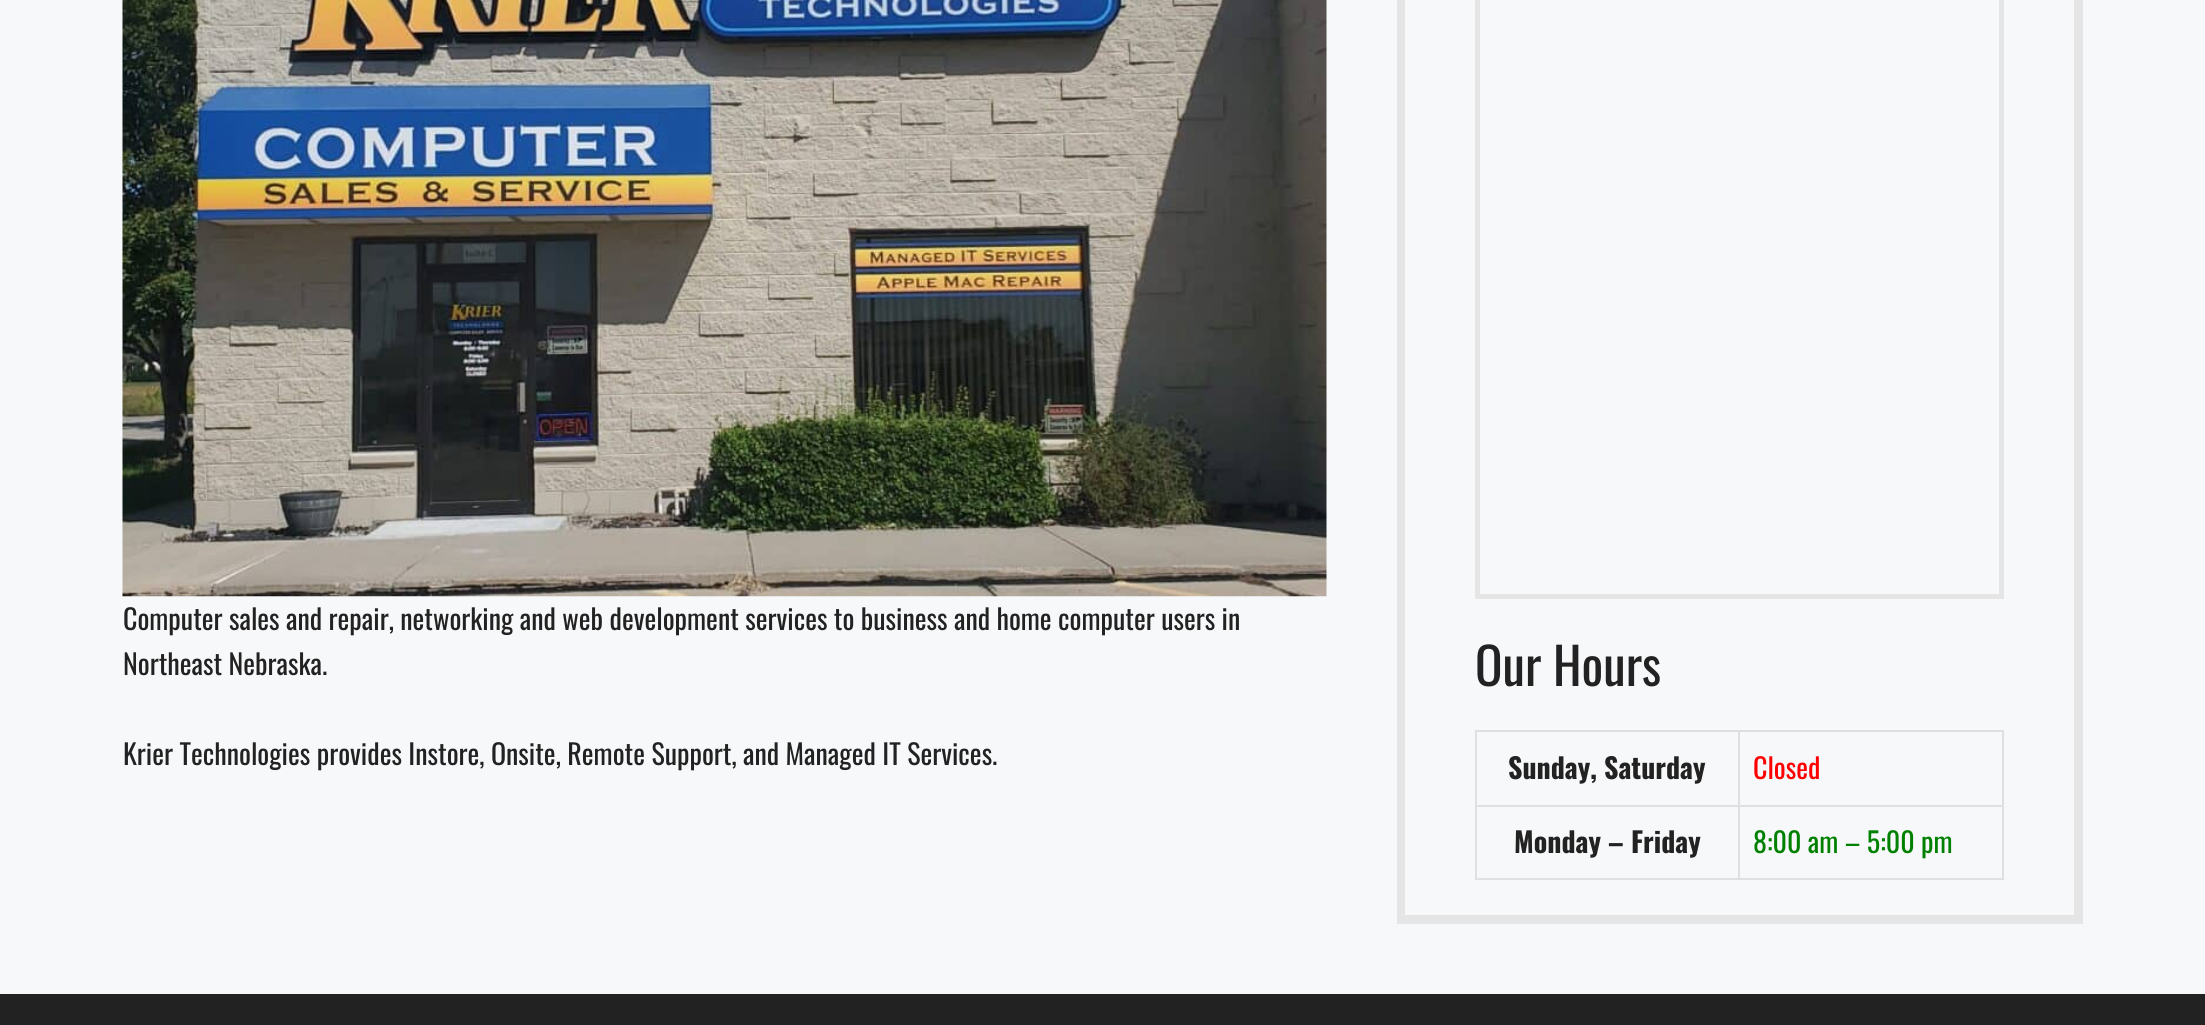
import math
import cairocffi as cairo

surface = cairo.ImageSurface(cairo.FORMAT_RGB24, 2205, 1025)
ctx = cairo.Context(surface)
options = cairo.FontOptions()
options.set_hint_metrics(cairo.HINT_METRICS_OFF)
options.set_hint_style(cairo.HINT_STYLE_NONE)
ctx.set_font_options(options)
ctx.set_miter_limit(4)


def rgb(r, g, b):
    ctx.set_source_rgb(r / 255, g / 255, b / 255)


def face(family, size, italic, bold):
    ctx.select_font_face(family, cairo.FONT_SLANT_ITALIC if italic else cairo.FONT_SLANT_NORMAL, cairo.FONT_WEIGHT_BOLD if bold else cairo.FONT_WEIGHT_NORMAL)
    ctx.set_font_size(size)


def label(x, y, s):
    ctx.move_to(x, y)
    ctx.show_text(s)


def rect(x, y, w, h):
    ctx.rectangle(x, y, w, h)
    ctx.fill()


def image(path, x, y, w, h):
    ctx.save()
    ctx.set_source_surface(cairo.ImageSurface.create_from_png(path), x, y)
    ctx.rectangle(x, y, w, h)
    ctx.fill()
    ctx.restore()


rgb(247, 248, 249)
ctx.paint()
image('image0.png', 122, 0, 1205, 597)
face('Oswald', 28, 0, 0)
rgb(34, 34, 34)
label(123, 630, 'Computer sales and repair, networking and web development services to business and home computer users in')
label(123, 675, 'Northeast Nebraska.')
label(123, 765, 'Krier Technologies provides Instore, Onsite, Remote Support, and Managed IT Services.')
ctx.rectangle(1401.5, -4.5, 677, 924)
rgb(229, 229, 229)
ctx.set_line_width(9)
ctx.stroke()
rgb(247, 248, 249)
rect(1405, 0, 1, 915)
ctx.rectangle(1477.5, -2.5, 524, 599)
rgb(229, 229, 229)
ctx.set_line_width(5)
ctx.stroke()
face('Oswald', 51, 0, 0)
rgb(34, 34, 34)
label(1475, 686, 'Our Hours')
rgb(222, 223, 224)
ctx.new_path()
ctx.move_to(1475, 730)
ctx.line_to(2004, 730)
ctx.line_to(2004, 732)
ctx.line_to(1477, 732)
ctx.close_path()
ctx.fill()
ctx.set_source_rgba(0, 0, 0, 0.1)
ctx.new_path()
ctx.move_to(1475, 880)
ctx.line_to(1475, 730)
ctx.line_to(1477, 732)
ctx.line_to(1477, 880)
ctx.close_path()
ctx.fill()
rgb(222, 223, 224)
ctx.new_path()
ctx.move_to(1740, 732)
ctx.line_to(1740, 807)
ctx.line_to(1738, 805)
ctx.line_to(1738, 732)
ctx.close_path()
ctx.fill()
ctx.set_source_rgba(0, 0, 0, 0.1)
ctx.new_path()
ctx.move_to(1740, 807)
ctx.line_to(1477, 807)
ctx.line_to(1477, 805)
ctx.line_to(1738, 805)
ctx.close_path()
ctx.fill()
face('Oswald', 28, 0, 1)
rgb(34, 34, 34)
label(1508, 779, 'Sunday, Saturday')
rgb(222, 223, 224)
ctx.new_path()
ctx.move_to(2004, 732)
ctx.line_to(2004, 807)
ctx.line_to(2002, 805)
ctx.line_to(2002, 732)
ctx.close_path()
ctx.fill()
ctx.set_source_rgba(0, 0, 0, 0.1)
ctx.new_path()
ctx.move_to(2004, 807)
ctx.line_to(1740, 807)
ctx.line_to(1740, 805)
ctx.line_to(2002, 805)
ctx.close_path()
ctx.fill()
face('Oswald', 28, 0, 0)
rgb(255, 0, 0)
label(1753, 779, 'Closed')
rgb(222, 223, 224)
ctx.new_path()
ctx.move_to(1740, 807)
ctx.line_to(1740, 880)
ctx.line_to(1738, 878)
ctx.line_to(1738, 807)
ctx.close_path()
ctx.fill()
ctx.set_source_rgba(0, 0, 0, 0.1)
ctx.new_path()
ctx.move_to(1740, 880)
ctx.line_to(1477, 880)
ctx.line_to(1477, 878)
ctx.line_to(1738, 878)
ctx.close_path()
ctx.fill()
face('Oswald', 28, 0, 1)
rgb(34, 34, 34)
label(1514, 853, 'Monday – Friday')
rgb(222, 223, 224)
ctx.new_path()
ctx.move_to(2004, 807)
ctx.line_to(2004, 880)
ctx.line_to(2002, 878)
ctx.line_to(2002, 807)
ctx.close_path()
ctx.fill()
ctx.set_source_rgba(0, 0, 0, 0.1)
ctx.new_path()
ctx.move_to(2004, 880)
ctx.line_to(1740, 880)
ctx.line_to(1740, 878)
ctx.line_to(2002, 878)
ctx.close_path()
ctx.fill()
face('Oswald', 28, 0, 0)
rgb(0, 128, 0)
label(1753, 853, '8:00 am – 5:00 pm')
rgb(34, 34, 34)
rect(0, 994, 2205, 31)
surface.write_to_png('render.png')
